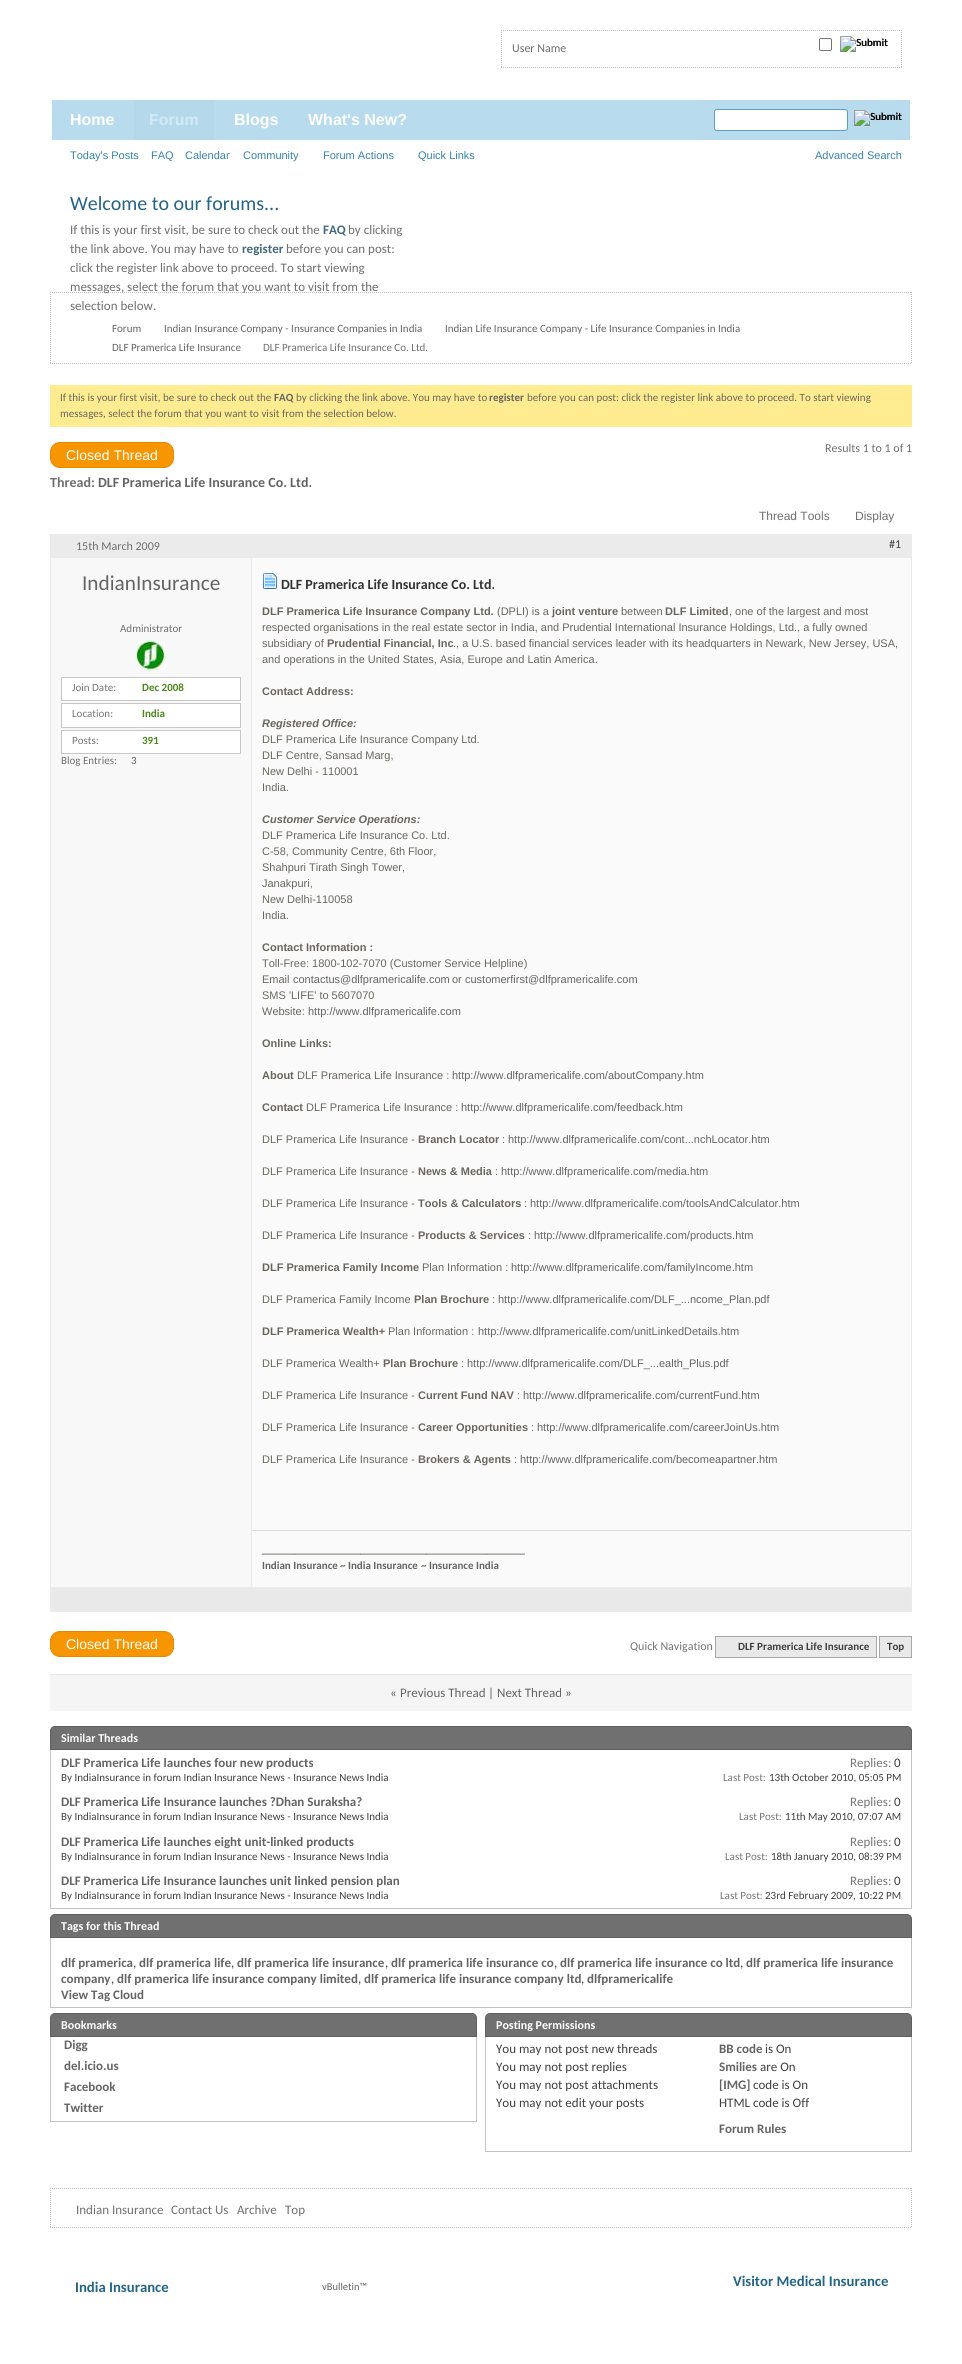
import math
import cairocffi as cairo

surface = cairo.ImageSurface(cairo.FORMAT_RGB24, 962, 2364)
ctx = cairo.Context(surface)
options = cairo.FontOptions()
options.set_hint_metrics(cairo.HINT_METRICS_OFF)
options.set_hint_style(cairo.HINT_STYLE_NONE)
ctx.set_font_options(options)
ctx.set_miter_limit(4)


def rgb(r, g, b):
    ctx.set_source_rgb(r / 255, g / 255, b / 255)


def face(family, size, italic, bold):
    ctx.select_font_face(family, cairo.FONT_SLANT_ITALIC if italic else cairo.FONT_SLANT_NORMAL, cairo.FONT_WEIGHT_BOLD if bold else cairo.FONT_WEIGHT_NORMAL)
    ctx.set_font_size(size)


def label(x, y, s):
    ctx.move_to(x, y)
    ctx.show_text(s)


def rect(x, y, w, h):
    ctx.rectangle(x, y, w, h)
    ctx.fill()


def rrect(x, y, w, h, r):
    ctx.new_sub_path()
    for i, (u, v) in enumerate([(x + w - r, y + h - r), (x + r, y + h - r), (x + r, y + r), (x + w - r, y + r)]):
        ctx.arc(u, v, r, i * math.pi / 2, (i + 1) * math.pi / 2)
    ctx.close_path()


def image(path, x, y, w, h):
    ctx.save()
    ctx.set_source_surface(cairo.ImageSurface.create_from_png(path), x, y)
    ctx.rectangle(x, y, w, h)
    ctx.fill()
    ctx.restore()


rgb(255, 255, 255)
ctx.paint()
ctx.new_path()
ctx.move_to(501, 30.5)
ctx.line_to(902, 30.5)
rgb(191, 193, 194)
ctx.set_line_width(1)
ctx.set_dash([1, 1])
ctx.stroke()
ctx.new_path()
ctx.move_to(901.5, 30)
ctx.line_to(901.5, 68)
ctx.stroke()
ctx.new_path()
ctx.move_to(501, 67.5)
ctx.line_to(902, 67.5)
ctx.stroke()
ctx.new_path()
ctx.move_to(501.5, 30)
ctx.line_to(501.5, 68)
ctx.stroke()
rrect(819.5, 38.5, 12, 12, 1.5)
rgb(118, 118, 118)
ctx.set_dash([])
ctx.stroke()
image('image0.png', 840, 36, 48, 16)
face('Carlito', 11, 0, 0)
rgb(0, 0, 0)
label(856, 46, 'Submit')
face('Carlito', 12, 0, 0)
rgb(111, 111, 111)
label(512, 52, 'User Name')
rgb(184, 219, 238)
rect(52, 100, 858, 40)
face('Liberation Sans', 16, 0, 1)
rgb(255, 255, 255)
label(70, 125, 'Home')
label(234, 125, 'Blogs')
label(308, 125, 'What\'s New?')
rgb(181, 216, 235)
rect(134, 100, 80, 40)
rgb(209, 234, 246)
label(149, 125, 'Forum')
face('Liberation Sans', 11, 0, 0)
rgb(53, 130, 169)
label(70, 159, 'Today\'s Posts')
label(151, 159, 'FAQ')
label(185, 159, 'Calendar')
label(243, 159, 'Community')
label(323, 159, 'Forum Actions')
label(418, 159, 'Quick Links')
rgb(255, 255, 255)
rrect(714.5, 109.5, 133, 21, 2.5)
ctx.fill_preserve()
rgb(93, 160, 195)
ctx.stroke()
image('image1.png', 854, 110, 48, 16)
face('Carlito', 11, 0, 0)
rgb(0, 0, 0)
label(870, 120, 'Submit')
face('Liberation Sans', 11, 0, 0)
rgb(53, 130, 169)
label(815, 159, 'Advanced Search')
face('Carlito', 20, 0, 0)
rgb(36, 101, 134)
label(70, 210, 'Welcome to our forums...')
face('Carlito', 13, 0, 0)
rgb(111, 111, 111)
label(70, 234, 'If this is your first visit, be sure to check out the')
face('Carlito', 13, 0, 1)
rgb(67, 105, 125)
label(323, 234, 'FAQ')
face('Carlito', 13, 0, 0)
rgb(111, 111, 111)
label(348, 234, 'by clicking')
label(70, 253, 'the link above. You may have to')
face('Carlito', 13, 0, 1)
rgb(67, 105, 125)
label(242, 253, 'register')
face('Carlito', 13, 0, 0)
rgb(111, 111, 111)
label(286, 253, 'before you can post:')
label(70, 272, 'click the register link above to proceed. To start viewing')
ctx.new_path()
ctx.move_to(50, 292.5)
ctx.line_to(912, 292.5)
rgb(191, 193, 194)
ctx.set_dash([1, 1])
ctx.stroke()
rgb(111, 111, 111)
label(70, 291, 'messages, select the forum that you want to visit from the')
label(70, 310, 'selection below.')
ctx.new_path()
ctx.move_to(911.5, 292)
ctx.line_to(911.5, 364)
rgb(191, 193, 194)
ctx.stroke()
ctx.new_path()
ctx.move_to(50, 363.5)
ctx.line_to(912, 363.5)
ctx.stroke()
ctx.new_path()
ctx.move_to(50.5, 292)
ctx.line_to(50.5, 364)
ctx.stroke()
face('Carlito', 11, 0, 0)
rgb(100, 100, 100)
label(112, 332, 'Forum')
label(164, 332, 'Indian Insurance Company - Insurance Companies in India')
label(445, 332, 'Indian Life Insurance Company - Life Insurance Companies in India')
label(112, 351, 'DLF Pramerica Life Insurance')
rgb(111, 111, 111)
label(263, 351, 'DLF Pramerica Life Insurance Co. Ltd.')
rgb(255, 235, 144)
rect(50, 385, 862, 42)
rgb(105, 103, 93)
label(60, 401, 'If this is your first visit, be sure to check out the')
face('Carlito', 11, 0, 1)
rgb(100, 100, 100)
label(274, 401, 'FAQ')
face('Carlito', 11, 0, 0)
rgb(105, 103, 93)
label(296, 401, 'by clicking the link above. You may have to')
face('Carlito', 11, 0, 1)
rgb(100, 100, 100)
label(489, 401, 'register')
face('Carlito', 11, 0, 0)
rgb(105, 103, 93)
label(527, 401, 'before you can post: click the register link above to proceed. To start viewing')
label(60, 417, 'messages, select the forum that you want to visit from the selection below.')
face('Carlito', 12, 0, 0)
rgb(111, 111, 111)
label(825, 452, 'Results 1 to 1 of 1')
rgb(248, 150, 2)
rrect(50.5, 442.5, 123, 25, 9.5)
ctx.fill_preserve()
rgb(229, 137, 0)
ctx.set_dash([])
ctx.stroke()
face('Liberation Sans', 14, 0, 0)
rgb(255, 255, 255)
label(66, 460, 'Closed Thread')
face('Carlito', 14, 0, 1)
rgb(111, 111, 111)
label(50, 487, 'Thread:')
rgb(100, 100, 100)
label(98, 487, 'DLF Pramerica Life Insurance Co. Ltd.')
face('Liberation Sans', 12, 0, 0)
rgb(111, 111, 111)
label(759, 520, 'Thread Tools')
label(855, 520, 'Display')
ctx.rectangle(50.5, 534.5, 861, 1077)
rgb(235, 235, 235)
ctx.stroke()
rect(51, 535, 860, 23)
face('Carlito', 12, 0, 0)
rgb(111, 111, 111)
label(76, 550, '15th March 2009')
rgb(63, 63, 63)
label(889, 548, '#1')
rgb(248, 248, 248)
rect(51, 558, 200, 1029)
face('Carlito', 21.25, 0, 0)
rgb(100, 100, 100)
label(82, 590, 'IndianInsurance')
face('Carlito', 11, 0, 0)
rgb(111, 111, 111)
label(120, 632, 'Administrator')
image('image2.png', 137, 641, 29, 29)
rgb(255, 255, 255)
ctx.rectangle(61.5, 677.5, 179, 23)
ctx.fill_preserve()
rgb(199, 199, 199)
ctx.stroke()
rgb(117, 117, 117)
label(72, 691, 'Join Date:')
face('Carlito', 11, 0, 1)
rgb(72, 137, 24)
label(142, 691, 'Dec 2008')
rgb(255, 255, 255)
ctx.rectangle(61.5, 703.5, 179, 24)
ctx.fill_preserve()
rgb(199, 199, 199)
ctx.stroke()
face('Carlito', 11, 0, 0)
rgb(117, 117, 117)
label(72, 717, 'Location:')
face('Carlito', 11, 0, 1)
rgb(72, 137, 24)
label(142, 717, 'India')
rgb(255, 255, 255)
ctx.rectangle(61.5, 730.5, 179, 23)
ctx.fill_preserve()
rgb(199, 199, 199)
ctx.stroke()
face('Carlito', 11, 0, 0)
rgb(117, 117, 117)
label(72, 744, 'Posts:')
face('Carlito', 11, 0, 1)
rgb(72, 137, 24)
label(142, 744, '391')
face('Carlito', 11, 0, 0)
rgb(111, 111, 111)
label(61, 764, 'Blog Entries:')
rgb(100, 100, 100)
label(131, 764, '3')
rgb(250, 250, 250)
rect(252, 558, 659, 1029)
rgb(235, 235, 235)
rect(251, 558, 1, 1029)
image('image3.png', 263, 573, 14, 16)
face('Carlito', 14, 0, 1)
rgb(51, 51, 51)
label(281, 589, 'DLF Pramerica Life Insurance Co. Ltd.')
face('Liberation Sans', 11, 0, 1)
rgb(105, 103, 93)
label(262, 615, 'DLF Pramerica Life Insurance Company Ltd.')
face('Liberation Sans', 11, 0, 0)
label(497, 615, '(DPLI) is a')
face('Liberation Sans', 11, 0, 1)
label(552, 615, 'joint venture')
face('Liberation Sans', 11, 0, 0)
label(621, 615, 'between')
face('Liberation Sans', 11, 0, 1)
label(665, 615, 'DLF Limited')
face('Liberation Sans', 11, 0, 0)
label(729, 615, ', one of the largest and most')
label(262, 631, 'respected organisations in the real estate sector in India, and Prudential International Insurance Holdings, Ltd., a fully owned')
label(262, 647, 'subsidiary of')
face('Liberation Sans', 11, 0, 1)
label(327, 647, 'Prudential Financial, Inc')
face('Liberation Sans', 11, 0, 0)
label(453, 647, '., a U.S. based financial services leader with its headquarters in Newark, New Jersey, USA,')
label(262, 663, 'and operations in the United States, Asia, Europe and Latin America.')
face('Liberation Sans', 11, 0, 1)
label(262, 695, 'Contact Address:')
face('Liberation Sans', 11, 1, 1)
label(262, 727, 'Registered Office:')
face('Liberation Sans', 11, 0, 0)
label(262, 743, 'DLF Pramerica Life Insurance Company Ltd.')
label(262, 759, 'DLF Centre, Sansad Marg,')
label(262, 775, 'New Delhi - 110001')
label(262, 791, 'India.')
face('Liberation Sans', 11, 1, 1)
label(262, 823, 'Customer Service Operations:')
face('Liberation Sans', 11, 0, 0)
label(262, 839, 'DLF Pramerica Life Insurance Co. Ltd.')
label(262, 855, 'C-58, Community Centre, 6th Floor,')
label(262, 871, 'Shahpuri Tirath Singh Tower,')
label(262, 887, 'Janakpuri,')
label(262, 903, 'New Delhi-110058')
label(262, 919, 'India.')
face('Liberation Sans', 11, 0, 1)
label(262, 951, 'Contact Information :')
face('Liberation Sans', 11, 0, 0)
label(262, 967, 'Toll-Free: 1800-102-7070 (Customer Service Helpline)')
label(262, 983, 'Email')
rgb(100, 100, 100)
label(293, 983, 'contactus@dlfpramericalife.com')
rgb(105, 103, 93)
label(452, 983, 'or')
rgb(100, 100, 100)
label(465, 983, 'customerfirst@dlfpramericalife.com')
rgb(105, 103, 93)
label(262, 999, 'SMS \'LIFE\' to 5607070')
label(262, 1015, 'Website:')
rgb(100, 100, 100)
label(308, 1015, 'http://www.dlfpramericalife.com')
face('Liberation Sans', 11, 0, 1)
rgb(105, 103, 93)
label(262, 1047, 'Online Links:')
label(262, 1079, 'About')
face('Liberation Sans', 11, 0, 0)
label(297, 1079, 'DLF Pramerica Life Insurance :')
rgb(100, 100, 100)
label(452, 1079, 'http://www.dlfpramericalife.com/aboutCompany.htm')
face('Liberation Sans', 11, 0, 1)
rgb(105, 103, 93)
label(262, 1111, 'Contact')
face('Liberation Sans', 11, 0, 0)
label(306, 1111, 'DLF Pramerica Life Insurance :')
rgb(100, 100, 100)
label(461, 1111, 'http://www.dlfpramericalife.com/feedback.htm')
rgb(105, 103, 93)
label(262, 1143, 'DLF Pramerica Life Insurance -')
face('Liberation Sans', 11, 0, 1)
label(418, 1143, 'Branch Locator')
face('Liberation Sans', 11, 0, 0)
label(502, 1143, ':')
rgb(100, 100, 100)
label(508, 1143, 'http://www.dlfpramericalife.com/cont...nchLocator.htm')
rgb(105, 103, 93)
label(262, 1175, 'DLF Pramerica Life Insurance -')
face('Liberation Sans', 11, 0, 1)
label(418, 1175, 'News & Media')
face('Liberation Sans', 11, 0, 0)
label(495, 1175, ':')
rgb(100, 100, 100)
label(501, 1175, 'http://www.dlfpramericalife.com/media.htm')
rgb(105, 103, 93)
label(262, 1207, 'DLF Pramerica Life Insurance -')
face('Liberation Sans', 11, 0, 1)
label(418, 1207, 'Tools & Calculators')
face('Liberation Sans', 11, 0, 0)
label(524, 1207, ':')
rgb(100, 100, 100)
label(530, 1207, 'http://www.dlfpramericalife.com/toolsAndCalculator.htm')
rgb(105, 103, 93)
label(262, 1239, 'DLF Pramerica Life Insurance -')
face('Liberation Sans', 11, 0, 1)
label(418, 1239, 'Products & Services')
face('Liberation Sans', 11, 0, 0)
label(528, 1239, ':')
rgb(100, 100, 100)
label(534, 1239, 'http://www.dlfpramericalife.com/products.htm')
face('Liberation Sans', 11, 0, 1)
rgb(105, 103, 93)
label(262, 1271, 'DLF Pramerica Family Income')
face('Liberation Sans', 11, 0, 0)
label(422, 1271, 'Plan Information :')
rgb(100, 100, 100)
label(511, 1271, 'http://www.dlfpramericalife.com/familyIncome.htm')
rgb(105, 103, 93)
label(262, 1303, 'DLF Pramerica Family Income')
face('Liberation Sans', 11, 0, 1)
label(414, 1303, 'Plan Brochure')
face('Liberation Sans', 11, 0, 0)
label(492, 1303, ':')
rgb(100, 100, 100)
label(498, 1303, 'http://www.dlfpramericalife.com/DLF_...ncome_Plan.pdf')
face('Liberation Sans', 11, 0, 1)
rgb(105, 103, 93)
label(262, 1335, 'DLF Pramerica Wealth+')
face('Liberation Sans', 11, 0, 0)
label(388, 1335, 'Plan Information :')
rgb(100, 100, 100)
label(478, 1335, 'http://www.dlfpramericalife.com/unitLinkedDetails.htm')
rgb(105, 103, 93)
label(262, 1367, 'DLF Pramerica Wealth+')
face('Liberation Sans', 11, 0, 1)
label(383, 1367, 'Plan Brochure')
face('Liberation Sans', 11, 0, 0)
label(461, 1367, ':')
rgb(100, 100, 100)
label(467, 1367, 'http://www.dlfpramericalife.com/DLF_...ealth_Plus.pdf')
rgb(105, 103, 93)
label(262, 1399, 'DLF Pramerica Life Insurance -')
face('Liberation Sans', 11, 0, 1)
label(418, 1399, 'Current Fund NAV')
face('Liberation Sans', 11, 0, 0)
label(517, 1399, ':')
rgb(100, 100, 100)
label(523, 1399, 'http://www.dlfpramericalife.com/currentFund.htm')
rgb(105, 103, 93)
label(262, 1431, 'DLF Pramerica Life Insurance -')
face('Liberation Sans', 11, 0, 1)
label(418, 1431, 'Career Opportunities')
face('Liberation Sans', 11, 0, 0)
label(531, 1431, ':')
rgb(100, 100, 100)
label(537, 1431, 'http://www.dlfpramericalife.com/careerJoinUs.htm')
rgb(105, 103, 93)
label(262, 1463, 'DLF Pramerica Life Insurance -')
face('Liberation Sans', 11, 0, 1)
label(418, 1463, 'Brokers & Agents')
face('Liberation Sans', 11, 0, 0)
label(514, 1463, ':')
rgb(100, 100, 100)
label(520, 1463, 'http://www.dlfpramericalife.com/becomeapartner.htm')
rgb(221, 221, 221)
rect(252, 1530, 659, 1)
face('Carlito', 11, 0, 1)
rgb(105, 103, 93)
label(262, 1553, '________________________________________________')
rgb(100, 100, 100)
label(262, 1569, 'Indian Insurance')
rgb(105, 103, 93)
label(340, 1569, '~')
rgb(100, 100, 100)
label(348, 1569, 'India Insurance')
rgb(105, 103, 93)
label(421, 1569, '~')
rgb(100, 100, 100)
label(429, 1569, 'Insurance India')
rgb(235, 235, 235)
rect(51, 1587, 861, 1)
rect(51, 1587, 1, 24)
rgb(233, 233, 233)
rect(52, 1588, 859, 23)
rgb(248, 150, 2)
rrect(50.5, 1631.5, 123, 25, 9.5)
ctx.fill_preserve()
rgb(229, 137, 0)
ctx.stroke()
face('Liberation Sans', 14, 0, 0)
rgb(255, 255, 255)
label(66, 1649, 'Closed Thread')
face('Carlito', 12, 0, 0)
rgb(117, 117, 117)
label(630, 1650, 'Quick Navigation')
rgb(233, 233, 233)
ctx.rectangle(715.5, 1636.5, 161, 21)
ctx.fill_preserve()
rgb(168, 168, 168)
ctx.stroke()
face('Carlito', 11, 0, 1)
rgb(63, 63, 63)
label(738, 1650, 'DLF Pramerica Life Insurance')
rgb(233, 233, 233)
ctx.rectangle(879.5, 1636.5, 32, 21)
ctx.fill_preserve()
rgb(168, 168, 168)
ctx.stroke()
rgb(63, 63, 63)
label(887, 1650, 'Top')
rgb(245, 245, 245)
rect(50, 1675, 862, 36)
rgb(231, 231, 231)
rect(50, 1674, 862, 1)
face('Carlito', 13, 0, 0)
rgb(93, 93, 93)
label(390, 1697, '«')
rgb(100, 100, 100)
label(400, 1697, 'Previous Thread')
rgb(93, 93, 93)
label(488, 1697, '|')
rgb(100, 100, 100)
label(497, 1697, 'Next Thread')
rgb(93, 93, 93)
label(565, 1697, '»')
rgb(112, 112, 112)
ctx.new_path()
ctx.move_to(55, 1726.5)
ctx.line_to(907, 1726.5)
ctx.curve_to(909.5, 1726.5, 911.5, 1728.5, 911.5, 1731)
ctx.line_to(911.5, 1749.5)
ctx.line_to(50.5, 1749.5)
ctx.line_to(50.5, 1731)
ctx.curve_to(50.5, 1728.5, 52.5, 1726.5, 55, 1726.5)
ctx.close_path()
ctx.fill_preserve()
rgb(96, 96, 96)
ctx.stroke()
face('Carlito', 12, 0, 1)
rgb(255, 255, 255)
label(61, 1742, 'Similar Threads')
rgb(196, 196, 196)
rect(911, 1750, 1, 159)
rect(50, 1908, 862, 1)
rect(50, 1750, 1, 159)
face('Carlito', 13, 0, 1)
rgb(100, 100, 100)
label(61, 1767, 'DLF Pramerica Life launches four new products')
face('Carlito', 11, 0, 0)
rgb(63, 63, 63)
label(61, 1781, 'By IndiaInsurance in forum Indian Insurance News - Insurance News India')
face('Carlito', 13, 0, 0)
rgb(117, 117, 117)
label(850, 1767, 'Replies:')
rgb(63, 63, 63)
label(894, 1767, '0')
face('Carlito', 11, 0, 0)
rgb(117, 117, 117)
label(723, 1781, 'Last Post:')
rgb(63, 63, 63)
label(769, 1781, '13th October 2010, 05:05 PM')
face('Carlito', 13, 0, 1)
rgb(100, 100, 100)
label(61, 1806, 'DLF Pramerica Life Insurance launches ?Dhan Suraksha?')
face('Carlito', 11, 0, 0)
rgb(63, 63, 63)
label(61, 1820, 'By IndiaInsurance in forum Indian Insurance News - Insurance News India')
face('Carlito', 13, 0, 0)
rgb(117, 117, 117)
label(850, 1806, 'Replies:')
rgb(63, 63, 63)
label(894, 1806, '0')
face('Carlito', 11, 0, 0)
rgb(117, 117, 117)
label(739, 1820, 'Last Post:')
rgb(63, 63, 63)
label(785, 1820, '11th May 2010, 07:07 AM')
face('Carlito', 13, 0, 1)
rgb(100, 100, 100)
label(61, 1846, 'DLF Pramerica Life launches eight unit-linked products')
face('Carlito', 11, 0, 0)
rgb(63, 63, 63)
label(61, 1860, 'By IndiaInsurance in forum Indian Insurance News - Insurance News India')
face('Carlito', 13, 0, 0)
rgb(117, 117, 117)
label(850, 1846, 'Replies:')
rgb(63, 63, 63)
label(894, 1846, '0')
face('Carlito', 11, 0, 0)
rgb(117, 117, 117)
label(725, 1860, 'Last Post:')
rgb(63, 63, 63)
label(771, 1860, '18th January 2010, 08:39 PM')
face('Carlito', 13, 0, 1)
rgb(100, 100, 100)
label(61, 1885, 'DLF Pramerica Life Insurance launches unit linked pension plan')
face('Carlito', 11, 0, 0)
rgb(63, 63, 63)
label(61, 1899, 'By IndiaInsurance in forum Indian Insurance News - Insurance News India')
face('Carlito', 13, 0, 0)
rgb(117, 117, 117)
label(850, 1885, 'Replies:')
rgb(63, 63, 63)
label(894, 1885, '0')
face('Carlito', 11, 0, 0)
rgb(117, 117, 117)
label(720, 1899, 'Last Post:')
rgb(63, 63, 63)
label(765, 1899, '23rd February 2009, 10:22 PM')
rgb(112, 112, 112)
ctx.new_path()
ctx.move_to(55, 1914.5)
ctx.line_to(907, 1914.5)
ctx.curve_to(909.5, 1914.5, 911.5, 1916.5, 911.5, 1919)
ctx.line_to(911.5, 1937.5)
ctx.line_to(50.5, 1937.5)
ctx.line_to(50.5, 1919)
ctx.curve_to(50.5, 1916.5, 52.5, 1914.5, 55, 1914.5)
ctx.close_path()
ctx.fill_preserve()
rgb(96, 96, 96)
ctx.stroke()
face('Carlito', 12, 0, 1)
rgb(255, 255, 255)
label(61, 1930, 'Tags for this Thread')
rgb(196, 196, 196)
rect(911, 1938, 1, 70)
rect(50, 2007, 862, 1)
rect(50, 1938, 1, 70)
face('Carlito', 13, 0, 1)
rgb(100, 100, 100)
label(61, 1967, 'dlf pramerica')
face('Carlito', 13, 0, 0)
rgb(63, 63, 63)
label(133, 1967, ',')
face('Carlito', 13, 0, 1)
rgb(100, 100, 100)
label(139, 1967, 'dlf pramerica life')
face('Carlito', 13, 0, 0)
rgb(63, 63, 63)
label(231, 1967, ',')
face('Carlito', 13, 0, 1)
rgb(100, 100, 100)
label(237, 1967, 'dlf pramerica life insurance')
face('Carlito', 13, 0, 0)
rgb(63, 63, 63)
label(385, 1967, ',')
face('Carlito', 13, 0, 1)
rgb(100, 100, 100)
label(391, 1967, 'dlf pramerica life insurance co')
face('Carlito', 13, 0, 0)
rgb(63, 63, 63)
label(554, 1967, ',')
face('Carlito', 13, 0, 1)
rgb(100, 100, 100)
label(560, 1967, 'dlf pramerica life insurance co ltd')
face('Carlito', 13, 0, 0)
rgb(63, 63, 63)
label(740, 1967, ',')
face('Carlito', 13, 0, 1)
rgb(100, 100, 100)
label(746, 1967, 'dlf pramerica life insurance')
label(61, 1983, 'company')
face('Carlito', 13, 0, 0)
rgb(63, 63, 63)
label(111, 1983, ',')
face('Carlito', 13, 0, 1)
rgb(100, 100, 100)
label(117, 1983, 'dlf pramerica life insurance company limited')
face('Carlito', 13, 0, 0)
rgb(63, 63, 63)
label(358, 1983, ',')
face('Carlito', 13, 0, 1)
rgb(100, 100, 100)
label(364, 1983, 'dlf pramerica life insurance company ltd')
face('Carlito', 13, 0, 0)
rgb(63, 63, 63)
label(581, 1983, ',')
face('Carlito', 13, 0, 1)
rgb(100, 100, 100)
label(587, 1983, 'dlfpramericalife')
label(61, 1999, 'View Tag Cloud')
rgb(112, 112, 112)
ctx.new_path()
ctx.move_to(55, 2013.5)
ctx.line_to(472, 2013.5)
ctx.curve_to(474.5, 2013.5, 476.5, 2015.5, 476.5, 2018)
ctx.line_to(476.5, 2036.5)
ctx.line_to(50.5, 2036.5)
ctx.line_to(50.5, 2018)
ctx.curve_to(50.5, 2015.5, 52.5, 2013.5, 55, 2013.5)
ctx.close_path()
ctx.fill_preserve()
rgb(96, 96, 96)
ctx.stroke()
face('Carlito', 12, 0, 1)
rgb(255, 255, 255)
label(61, 2029, 'Bookmarks')
rgb(196, 196, 196)
rect(476, 2037, 1, 85)
rect(50, 2121, 427, 1)
rect(50, 2037, 1, 85)
face('Carlito', 13, 0, 1)
rgb(100, 100, 100)
label(64, 2049, 'Digg')
label(64, 2070, 'del.icio.us')
label(64, 2091, 'Facebook')
label(64, 2112, 'Twitter')
rgb(112, 112, 112)
ctx.new_path()
ctx.move_to(490, 2013.5)
ctx.line_to(907, 2013.5)
ctx.curve_to(909.5, 2013.5, 911.5, 2015.5, 911.5, 2018)
ctx.line_to(911.5, 2036.5)
ctx.line_to(485.5, 2036.5)
ctx.line_to(485.5, 2018)
ctx.curve_to(485.5, 2015.5, 487.5, 2013.5, 490, 2013.5)
ctx.close_path()
ctx.fill_preserve()
rgb(96, 96, 96)
ctx.stroke()
face('Carlito', 12, 0, 1)
rgb(255, 255, 255)
label(496, 2029, 'Posting Permissions')
rgb(196, 196, 196)
rect(911, 2037, 1, 115)
rect(485, 2151, 427, 1)
rect(485, 2037, 1, 115)
face('Carlito', 13, 0, 0)
rgb(63, 63, 63)
label(496, 2053, 'You may not post new threads')
label(496, 2071, 'You may not post replies')
label(496, 2089, 'You may not post attachments')
label(496, 2107, 'You may not edit your posts')
face('Carlito', 13, 0, 1)
rgb(100, 100, 100)
label(719, 2053, 'BB code')
face('Carlito', 13, 0, 0)
rgb(63, 63, 63)
label(765, 2053, 'is On')
face('Carlito', 13, 0, 1)
rgb(100, 100, 100)
label(719, 2071, 'Smilies')
face('Carlito', 13, 0, 0)
rgb(63, 63, 63)
label(760, 2071, 'are On')
face('Carlito', 13, 0, 1)
rgb(100, 100, 100)
label(719, 2089, '[IMG]')
face('Carlito', 13, 0, 0)
rgb(63, 63, 63)
label(753, 2089, 'code is On')
label(719, 2107, 'HTML code is Off')
face('Carlito', 13, 0, 1)
rgb(100, 100, 100)
label(719, 2133, 'Forum Rules')
ctx.new_path()
ctx.move_to(50, 2188.5)
ctx.line_to(912, 2188.5)
rgb(191, 193, 194)
ctx.set_dash([1, 1])
ctx.stroke()
ctx.new_path()
ctx.move_to(911.5, 2188)
ctx.line_to(911.5, 2228)
ctx.stroke()
ctx.new_path()
ctx.move_to(50, 2227.5)
ctx.line_to(912, 2227.5)
ctx.stroke()
ctx.new_path()
ctx.move_to(50.5, 2188)
ctx.line_to(50.5, 2228)
ctx.stroke()
face('Carlito', 13, 0, 0)
rgb(111, 111, 111)
label(76, 2214, 'Indian Insurance')
label(171, 2214, 'Contact Us')
label(237, 2214, 'Archive')
label(285, 2214, 'Top')
face('Carlito', 14.75, 0, 1)
rgb(36, 101, 134)
label(75, 2292, 'India Insurance')
face('Carlito', 10.5, 0, 0)
rgb(100, 100, 100)
label(322, 2290, 'vBulletin™')
face('Carlito', 14.75, 0, 1)
rgb(36, 101, 134)
label(733, 2286, 'Visitor Medical Insurance')
surface.write_to_png('render.png')
